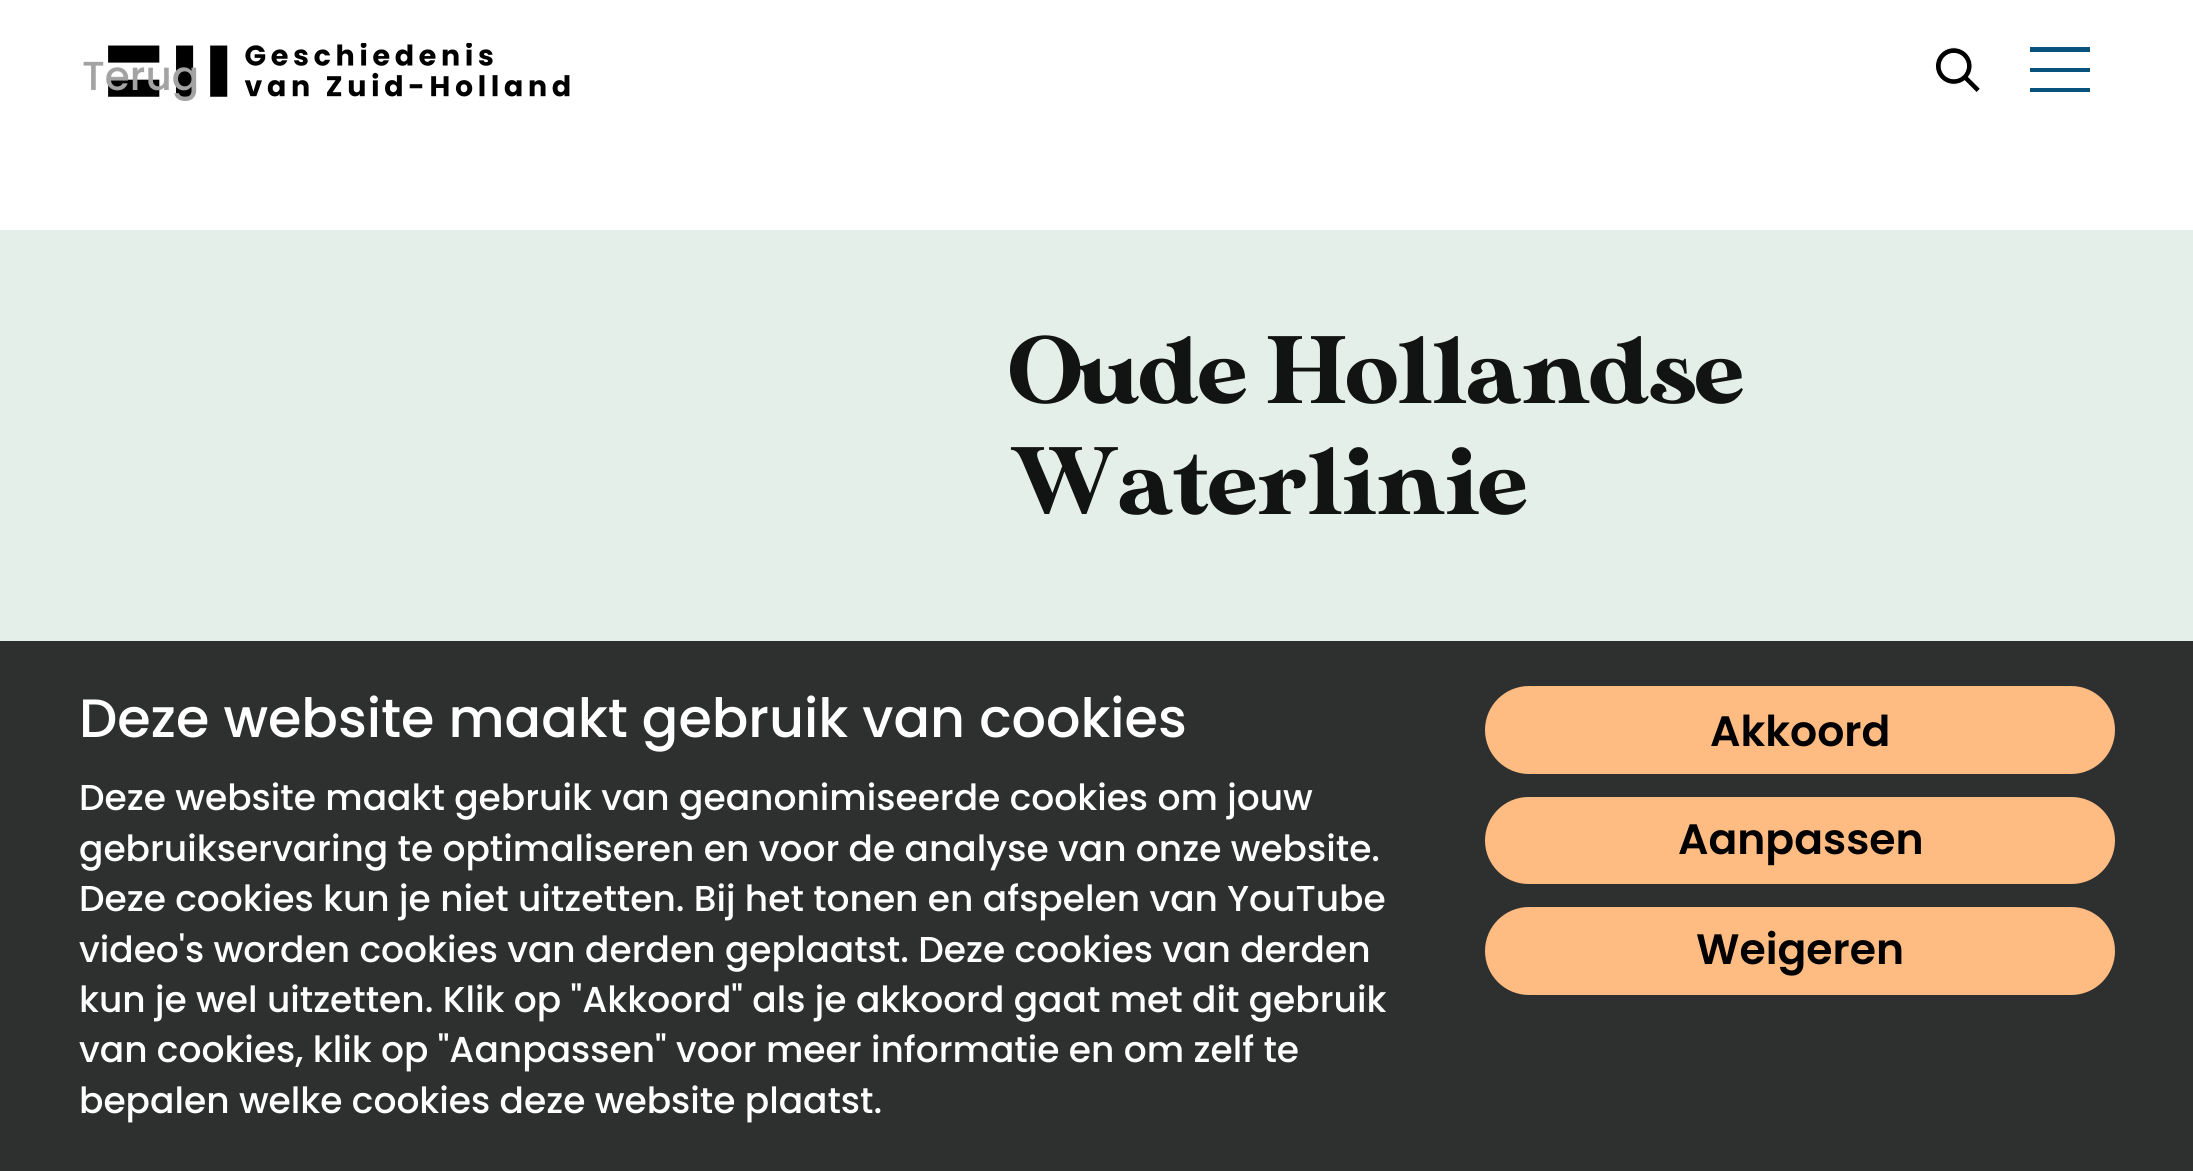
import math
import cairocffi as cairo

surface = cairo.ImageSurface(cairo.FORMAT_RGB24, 2193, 1171)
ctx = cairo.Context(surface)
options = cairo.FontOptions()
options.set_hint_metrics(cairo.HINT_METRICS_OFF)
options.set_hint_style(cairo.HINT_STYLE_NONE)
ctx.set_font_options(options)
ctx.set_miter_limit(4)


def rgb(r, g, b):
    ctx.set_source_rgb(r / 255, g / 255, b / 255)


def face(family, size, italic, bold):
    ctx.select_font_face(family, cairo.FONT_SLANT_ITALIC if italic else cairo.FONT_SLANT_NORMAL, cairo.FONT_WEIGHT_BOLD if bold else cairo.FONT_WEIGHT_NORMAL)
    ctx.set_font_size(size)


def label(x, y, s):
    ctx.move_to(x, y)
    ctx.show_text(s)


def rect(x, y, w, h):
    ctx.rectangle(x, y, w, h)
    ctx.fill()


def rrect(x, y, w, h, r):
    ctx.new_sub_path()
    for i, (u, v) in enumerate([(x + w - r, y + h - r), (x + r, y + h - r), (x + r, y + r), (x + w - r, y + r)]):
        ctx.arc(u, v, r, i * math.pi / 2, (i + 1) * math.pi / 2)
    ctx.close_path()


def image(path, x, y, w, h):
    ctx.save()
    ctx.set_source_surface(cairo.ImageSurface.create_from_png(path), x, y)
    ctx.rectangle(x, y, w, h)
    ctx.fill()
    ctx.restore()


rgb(229, 239, 233)
ctx.paint()
rgb(255, 255, 255)
rect(0, 0, 2193, 230)
image('image0.png', 108, 43, 462, 54)
image('image1.png', 1935, 47, 45, 45)
rgb(8, 82, 125)
ctx.new_path()
ctx.move_to(2030, 47)
ctx.line_to(2090, 47)
ctx.line_to(2090, 52)
ctx.line_to(2030, 52)
ctx.close_path()
ctx.move_to(2030, 68)
ctx.line_to(2090, 68)
ctx.line_to(2090, 72)
ctx.line_to(2030, 72)
ctx.close_path()
ctx.move_to(2030, 88)
ctx.line_to(2090, 88)
ctx.line_to(2090, 92)
ctx.line_to(2030, 92)
ctx.close_path()
ctx.fill()
face('Poppins Medium', 40.5, 0, 0)
rgb(163, 163, 163)
label(82, 90, 'Terug')
face('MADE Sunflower', 95.5, 0, 0)
rgb(18, 19, 19)
label(1010, 403, 'Oude Hollandse')
label(1010, 514, 'Waterlinie')
ctx.set_source_rgba(0, 0, 0, 0.8)
rect(0, 641, 2193, 530)
face('Poppins Medium', 54, 0, 0)
rgb(255, 255, 255)
label(79, 737, 'Deze website maakt gebruik van cookies')
face('Poppins Medium', 36, 0, 0)
label(79, 810, 'Deze website maakt gebruik van geanonimiseerde cookies om jouw')
label(79, 861, 'gebruikservaring te optimaliseren en voor de analyse van onze website.')
label(79, 911, 'Deze cookies kun je niet uitzetten. Bij het tonen en afspelen van YouTube')
label(79, 962, 'video\'s worden cookies van derden geplaatst. Deze cookies van derden')
label(79, 1012, 'kun je wel uitzetten. Klik op "Akkoord" als je akkoord gaat met dit gebruik')
label(79, 1062, 'van cookies, klik op "Aanpassen" voor meer informatie en om zelf te')
label(79, 1113, 'bepalen welke cookies deze website plaatst.')
rgb(255, 188, 130)
rrect(1485, 686, 630, 88, 44)
ctx.fill()
face('Poppins SemiBold', 42.5, 0, 0)
rgb(0, 0, 0)
label(1710, 746, 'Akkoord')
rgb(255, 188, 130)
rrect(1485, 797, 630, 87, 43.5)
ctx.fill()
rgb(0, 0, 0)
label(1678, 854, 'Aanpassen')
rgb(255, 188, 130)
rrect(1485, 907, 630, 88, 44)
ctx.fill()
rgb(0, 0, 0)
label(1696, 964, 'Weigeren')
surface.write_to_png('render.png')
